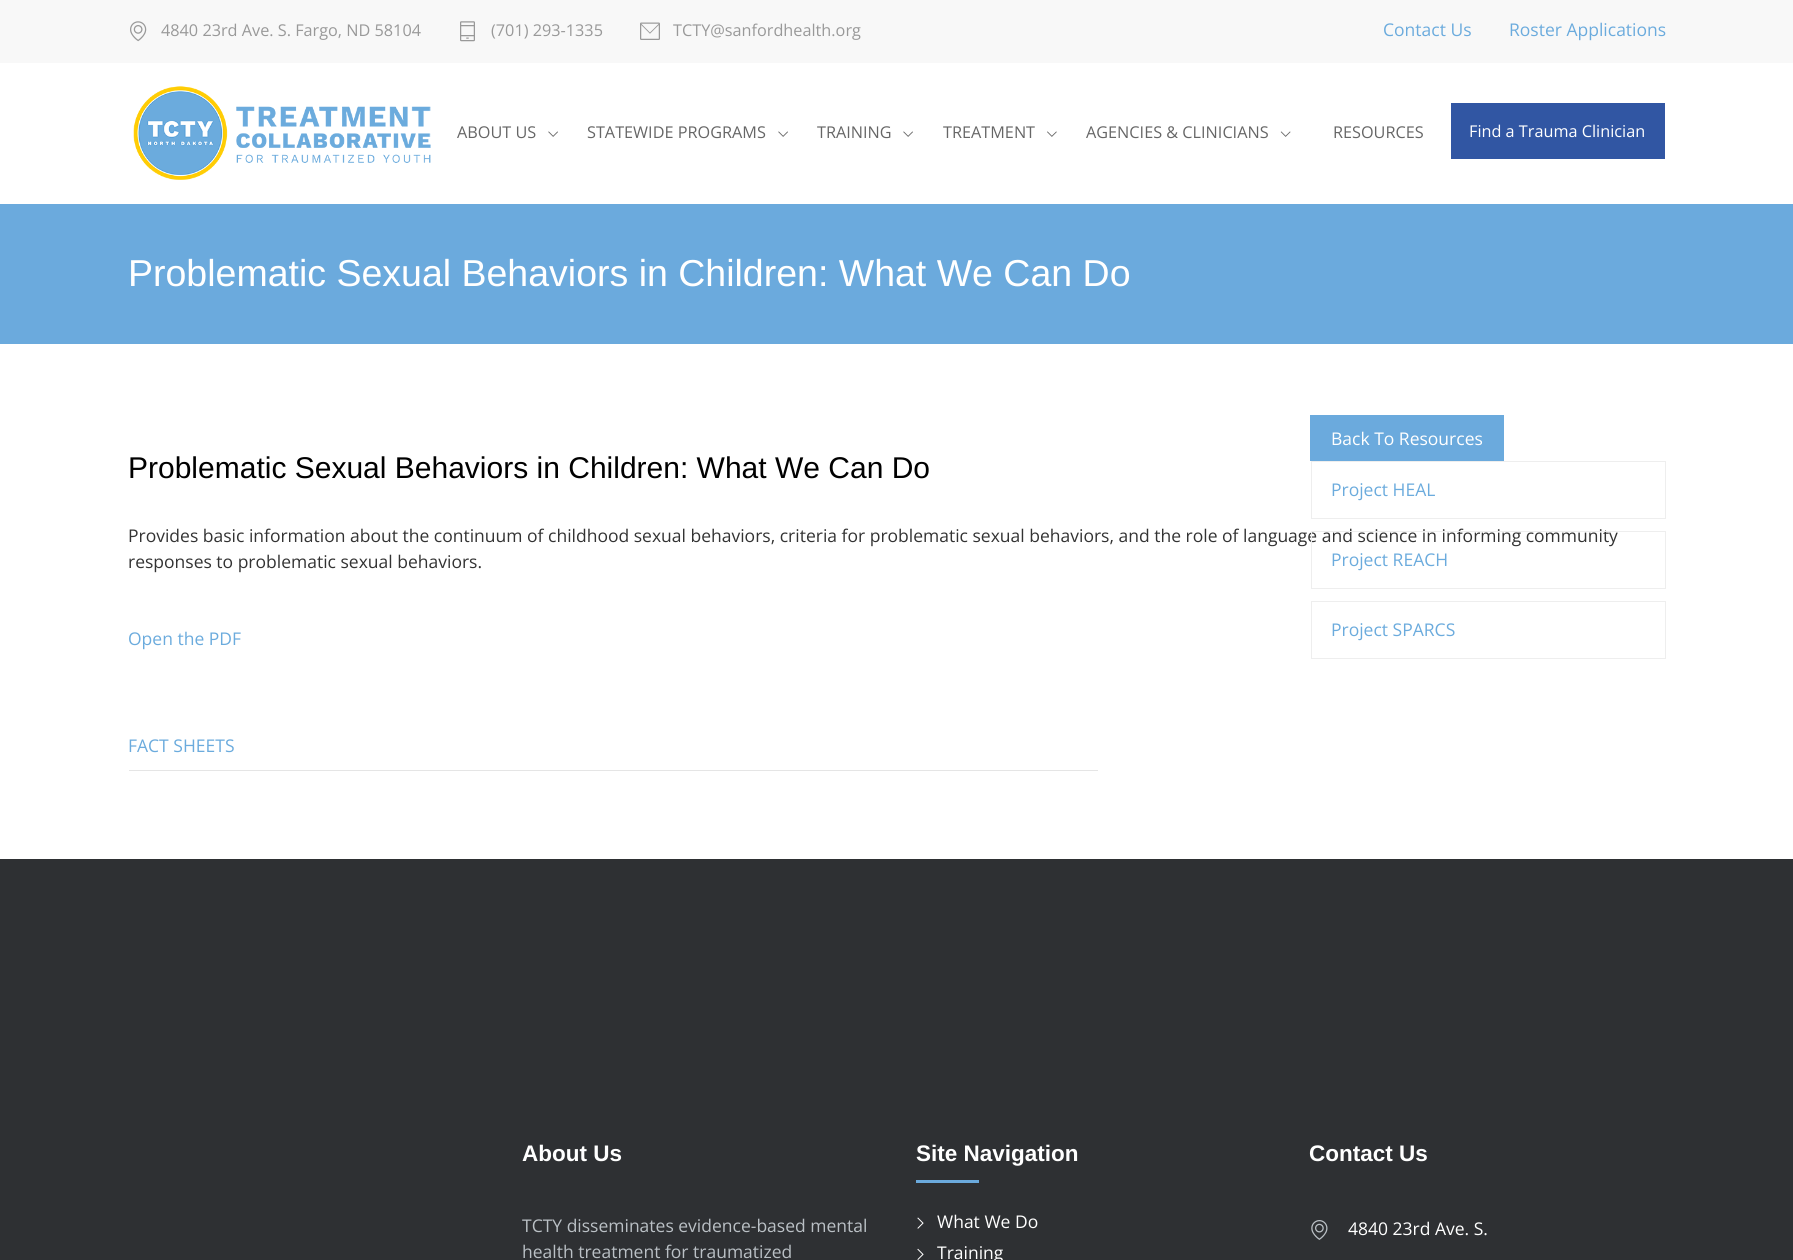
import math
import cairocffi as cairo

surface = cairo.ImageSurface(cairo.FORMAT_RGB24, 1793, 1260)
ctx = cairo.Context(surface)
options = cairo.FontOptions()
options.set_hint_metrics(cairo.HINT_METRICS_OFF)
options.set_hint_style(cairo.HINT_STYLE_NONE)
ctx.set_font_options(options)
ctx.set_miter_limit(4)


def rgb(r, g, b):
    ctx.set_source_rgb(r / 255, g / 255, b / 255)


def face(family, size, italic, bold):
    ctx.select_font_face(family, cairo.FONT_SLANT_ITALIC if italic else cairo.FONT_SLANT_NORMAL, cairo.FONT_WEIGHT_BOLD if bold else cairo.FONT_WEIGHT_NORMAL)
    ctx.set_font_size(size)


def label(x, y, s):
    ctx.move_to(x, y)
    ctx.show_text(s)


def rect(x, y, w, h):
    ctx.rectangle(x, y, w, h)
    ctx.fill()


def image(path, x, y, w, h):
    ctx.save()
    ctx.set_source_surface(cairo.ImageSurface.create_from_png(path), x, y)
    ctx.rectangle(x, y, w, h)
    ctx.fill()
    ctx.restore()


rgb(255, 255, 255)
ctx.paint()
rgb(248, 248, 248)
rect(0, 0, 1793, 63)
image('image0.png', 130, 21, 17, 21)
face('Open Sans', 16.25, 0, 0)
rgb(153, 153, 153)
label(161, 36, '4840 23rd Ave. S. Fargo, ND 58104')
image('image1.png', 460, 21, 15, 21)
label(491, 36, '(701) 293-1335')
image('image2.png', 640, 22, 20, 18)
label(673, 36, 'TCTY@sanfordhealth.org')
face('Open Sans', 17.5, 0, 0)
rgb(107, 171, 221)
label(1383, 36, 'Contact Us')
label(1509, 36, 'Roster Applications')
image('image3.png', 133, 86, 298, 94)
face('Open Sans', 16.25, 0, 0)
rgb(102, 102, 102)
label(457, 138, 'ABOUT US')
image('image4.png', 548, 131, 10, 6)
label(587, 138, 'STATEWIDE PROGRAMS')
image('image4.png', 778, 131, 10, 6)
label(817, 138, 'TRAINING')
image('image4.png', 903, 131, 10, 6)
label(943, 138, 'TREATMENT')
image('image5.png', 1047, 131, 10, 6)
label(1086, 138, 'AGENCIES & CLINICIANS')
image('image6.png', 1280, 131, 11, 6)
label(1333, 138, 'RESOURCES')
rgb(49, 86, 163)
rect(1451, 103, 214, 56)
rgb(255, 255, 255)
label(1469, 137, 'Find a Trauma Clinician')
rgb(107, 170, 221)
rect(0, 204, 1793, 140)
face('Liberation Sans', 37.5, 0, 0)
rgb(255, 255, 255)
label(128, 286, 'Problematic Sexual Behaviors in Children: What We Can Do')
rgb(107, 170, 221)
rect(1310, 415, 194, 46)
face('Open Sans', 17.5, 0, 0)
rgb(255, 255, 255)
label(1331, 445, 'Back To Resources')
ctx.rectangle(1311.5, 461.5, 354, 57)
rgb(238, 238, 238)
ctx.set_line_width(1)
ctx.stroke()
rgb(107, 171, 221)
label(1331, 496, 'Project HEAL')
rgb(51, 51, 51)
label(128, 542, 'Provides basic information about the continuum of childhood sexual behaviors, criteria for problematic sexual behaviors, and the role of language and science in informing community')
ctx.rectangle(1311.5, 531.5, 354, 57)
rgb(238, 238, 238)
ctx.stroke()
rgb(107, 171, 221)
label(1331, 566, 'Project REACH')
ctx.rectangle(1311.5, 601.5, 354, 57)
rgb(238, 238, 238)
ctx.stroke()
rgb(107, 171, 221)
label(1331, 636, 'Project SPARCS')
rgb(229, 229, 229)
rect(129, 770, 969, 1)
face('Liberation Sans', 30, 0, 0)
rgb(0, 0, 0)
label(128, 478, 'Problematic Sexual Behaviors in Children: What We Can Do')
face('Open Sans', 17.5, 0, 0)
rgb(51, 51, 51)
label(128, 568, 'responses to problematic sexual behaviors.')
rgb(107, 171, 221)
label(128, 645, 'Open the PDF')
label(128, 752, 'FACT SHEETS')
rgb(46, 48, 51)
rect(0, 859, 1793, 401)
face('Liberation Sans', 22.5, 0, 1)
rgb(255, 255, 255)
label(522, 1161, 'About Us')
face('Open Sans', 17.5, 0, 0)
rgb(186, 192, 197)
label(522, 1232, 'TCTY disseminates evidence-based mental')
label(522, 1258, 'health treatment for traumatized')
face('Liberation Sans', 22.5, 0, 1)
rgb(255, 255, 255)
label(916, 1161, 'Site Navigation')
rgb(107, 170, 221)
rect(916, 1180, 63, 3)
image('image7.png', 917, 1217, 7, 12)
face('Open Sans', 17.5, 0, 0)
rgb(255, 255, 255)
label(937, 1228, 'What We Do')
image('image8.png', 917, 1248, 7, 12)
label(937, 1259, 'Training')
face('Liberation Sans', 22.5, 0, 1)
label(1309, 1161, 'Contact Us')
image('image9.png', 1311, 1220, 17, 20)
face('Open Sans', 17.5, 0, 0)
label(1348, 1235, '4840 23rd Ave. S.')
surface.write_to_png('render.png')
